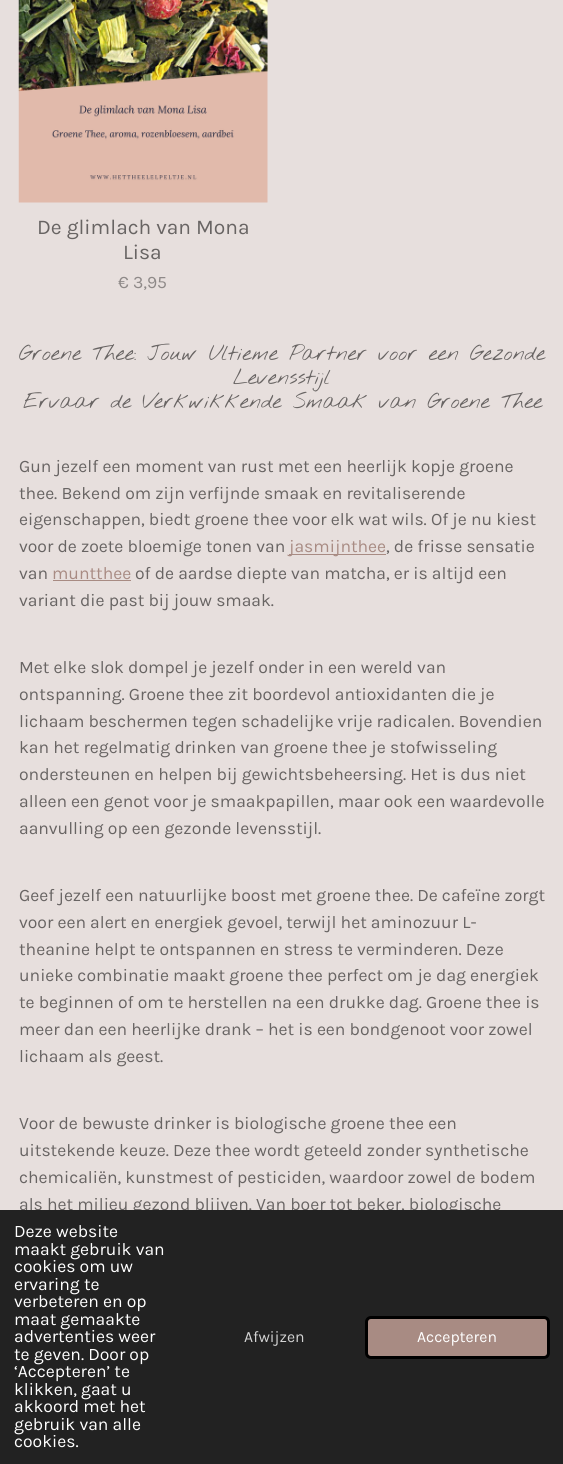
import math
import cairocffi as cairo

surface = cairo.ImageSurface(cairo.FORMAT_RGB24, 563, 1464)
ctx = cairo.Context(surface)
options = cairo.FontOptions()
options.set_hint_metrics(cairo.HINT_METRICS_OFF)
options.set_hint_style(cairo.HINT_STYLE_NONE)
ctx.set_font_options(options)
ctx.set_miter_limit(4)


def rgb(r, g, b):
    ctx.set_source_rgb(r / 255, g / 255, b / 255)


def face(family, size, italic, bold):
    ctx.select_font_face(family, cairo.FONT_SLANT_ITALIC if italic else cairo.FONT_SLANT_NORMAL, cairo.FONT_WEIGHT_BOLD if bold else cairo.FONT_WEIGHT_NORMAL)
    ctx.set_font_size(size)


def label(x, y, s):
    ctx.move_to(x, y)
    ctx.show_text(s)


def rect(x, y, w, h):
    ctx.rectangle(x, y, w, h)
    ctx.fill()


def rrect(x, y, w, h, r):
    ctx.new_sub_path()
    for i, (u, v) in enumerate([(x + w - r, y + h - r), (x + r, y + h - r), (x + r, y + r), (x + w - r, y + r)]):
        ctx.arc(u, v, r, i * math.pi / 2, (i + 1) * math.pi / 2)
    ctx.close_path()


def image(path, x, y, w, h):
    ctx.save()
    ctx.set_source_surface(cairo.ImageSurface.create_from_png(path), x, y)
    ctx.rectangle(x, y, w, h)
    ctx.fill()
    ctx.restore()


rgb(231, 223, 221)
ctx.paint()
image('image0.png', 18, 0, 250, 203)
face('Karla', 21, 0, 0)
rgb(104, 100, 99)
label(37, 234, 'De glimlach van Mona')
label(123, 259, 'Lisa')
face('Karla', 17.5, 0, 0)
rgb(142, 137, 136)
label(118, 288, '€ 3,95')
face('Nothing You Could Do Thin', 21.4, 0, 0)
rgb(104, 100, 99)
label(19, 360, 'Groene Thee: Jouw Ultieme Partner voor een Gezonde')
label(233, 384, 'Levensstijl')
label(23, 408, 'Ervaar de Verkwikkende Smaak van Groene Thee')
face('Karla', 17.5, 0, 0)
label(19, 472, 'Gun jezelf een moment van rust met een heerlijk kopje groene')
label(19, 499, 'thee. Bekend om zijn verfijnde smaak en revitaliserende')
label(19, 525, 'eigenschappen, biedt groene thee voor elk wat wils. Of je nu kiest')
label(19, 552, 'voor de zoete bloemige tonen van')
rgb(168, 139, 131)
rect(289, 554, 97, 1)
label(289, 552, 'jasmijnthee')
rgb(104, 100, 99)
label(386, 552, ', de frisse sensatie')
label(19, 579, 'van')
rgb(168, 139, 131)
label(52, 579, 'muntthee')
rect(53, 580, 78, 1)
rgb(104, 100, 99)
label(135, 579, 'of de aardse diepte van matcha, er is altijd een')
label(19, 606, 'variant die past bij jouw smaak.')
label(19, 673, 'Met elke slok dompel je jezelf onder in een wereld van')
label(19, 700, 'ontspanning. Groene thee zit boordevol antioxidanten die je')
label(19, 727, 'lichaam beschermen tegen schadelijke vrije radicalen. Bovendien')
label(19, 753, 'kan het regelmatig drinken van groene thee je stofwisseling')
label(19, 780, 'ondersteunen en helpen bij gewichtsbeheersing. Het is dus niet')
label(19, 807, 'alleen een genot voor je smaakpapillen, maar ook een waardevolle')
label(19, 834, 'aanvulling op een gezonde levensstijl.')
label(19, 901, 'Geef jezelf een natuurlijke boost met groene thee. De cafeïne zorgt')
label(19, 928, 'voor een alert en energiek gevoel, terwijl het aminozuur L-')
label(19, 955, 'theanine helpt te ontspannen en stress te verminderen. Deze')
label(19, 981, 'unieke combinatie maakt groene thee perfect om je dag energiek')
label(19, 1008, 'te beginnen of om te herstellen na een drukke dag. Groene thee is')
label(19, 1035, 'meer dan een heerlijke drank – het is een bondgenoot voor zowel')
label(19, 1062, 'lichaam als geest.')
label(19, 1129, 'Voor de bewuste drinker is biologische groene thee een')
label(19, 1156, 'uitstekende keuze. Deze thee wordt geteeld zonder synthetische')
label(19, 1183, 'chemicaliën, kunstmest of pesticiden, waardoor zowel de bodem')
label(19, 1210, 'als het milieu gezond blijven. Van boer tot beker, biologische')
rgb(34, 34, 34)
rect(0, 1210, 563, 254)
rgb(255, 255, 255)
label(14, 1237, 'Deze website')
label(14, 1255, 'maakt gebruik van')
label(14, 1272, 'cookies om uw')
label(14, 1290, 'ervaring te')
label(14, 1307, 'verbeteren en op')
label(14, 1325, 'maat gemaakte')
label(14, 1342, 'advertenties weer')
label(14, 1360, 'te geven. Door op')
label(14, 1377, '‘Accepteren’ te')
label(14, 1395, 'klikken, gaat u')
label(14, 1412, 'akkoord met het')
label(14, 1430, 'gebruik van alle')
label(14, 1447, 'cookies.')
face('Karla', 15.75, 0, 0)
rgb(211, 211, 211)
label(244, 1342, 'Afwijzen')
rgb(168, 139, 131)
rrect(366.5, 1317.5, 182, 40, 4.5)
ctx.fill_preserve()
rgb(0, 0, 0)
ctx.set_line_width(3)
ctx.stroke()
rgb(255, 255, 255)
label(417, 1342, 'Accepteren')
surface.write_to_png('render.png')
